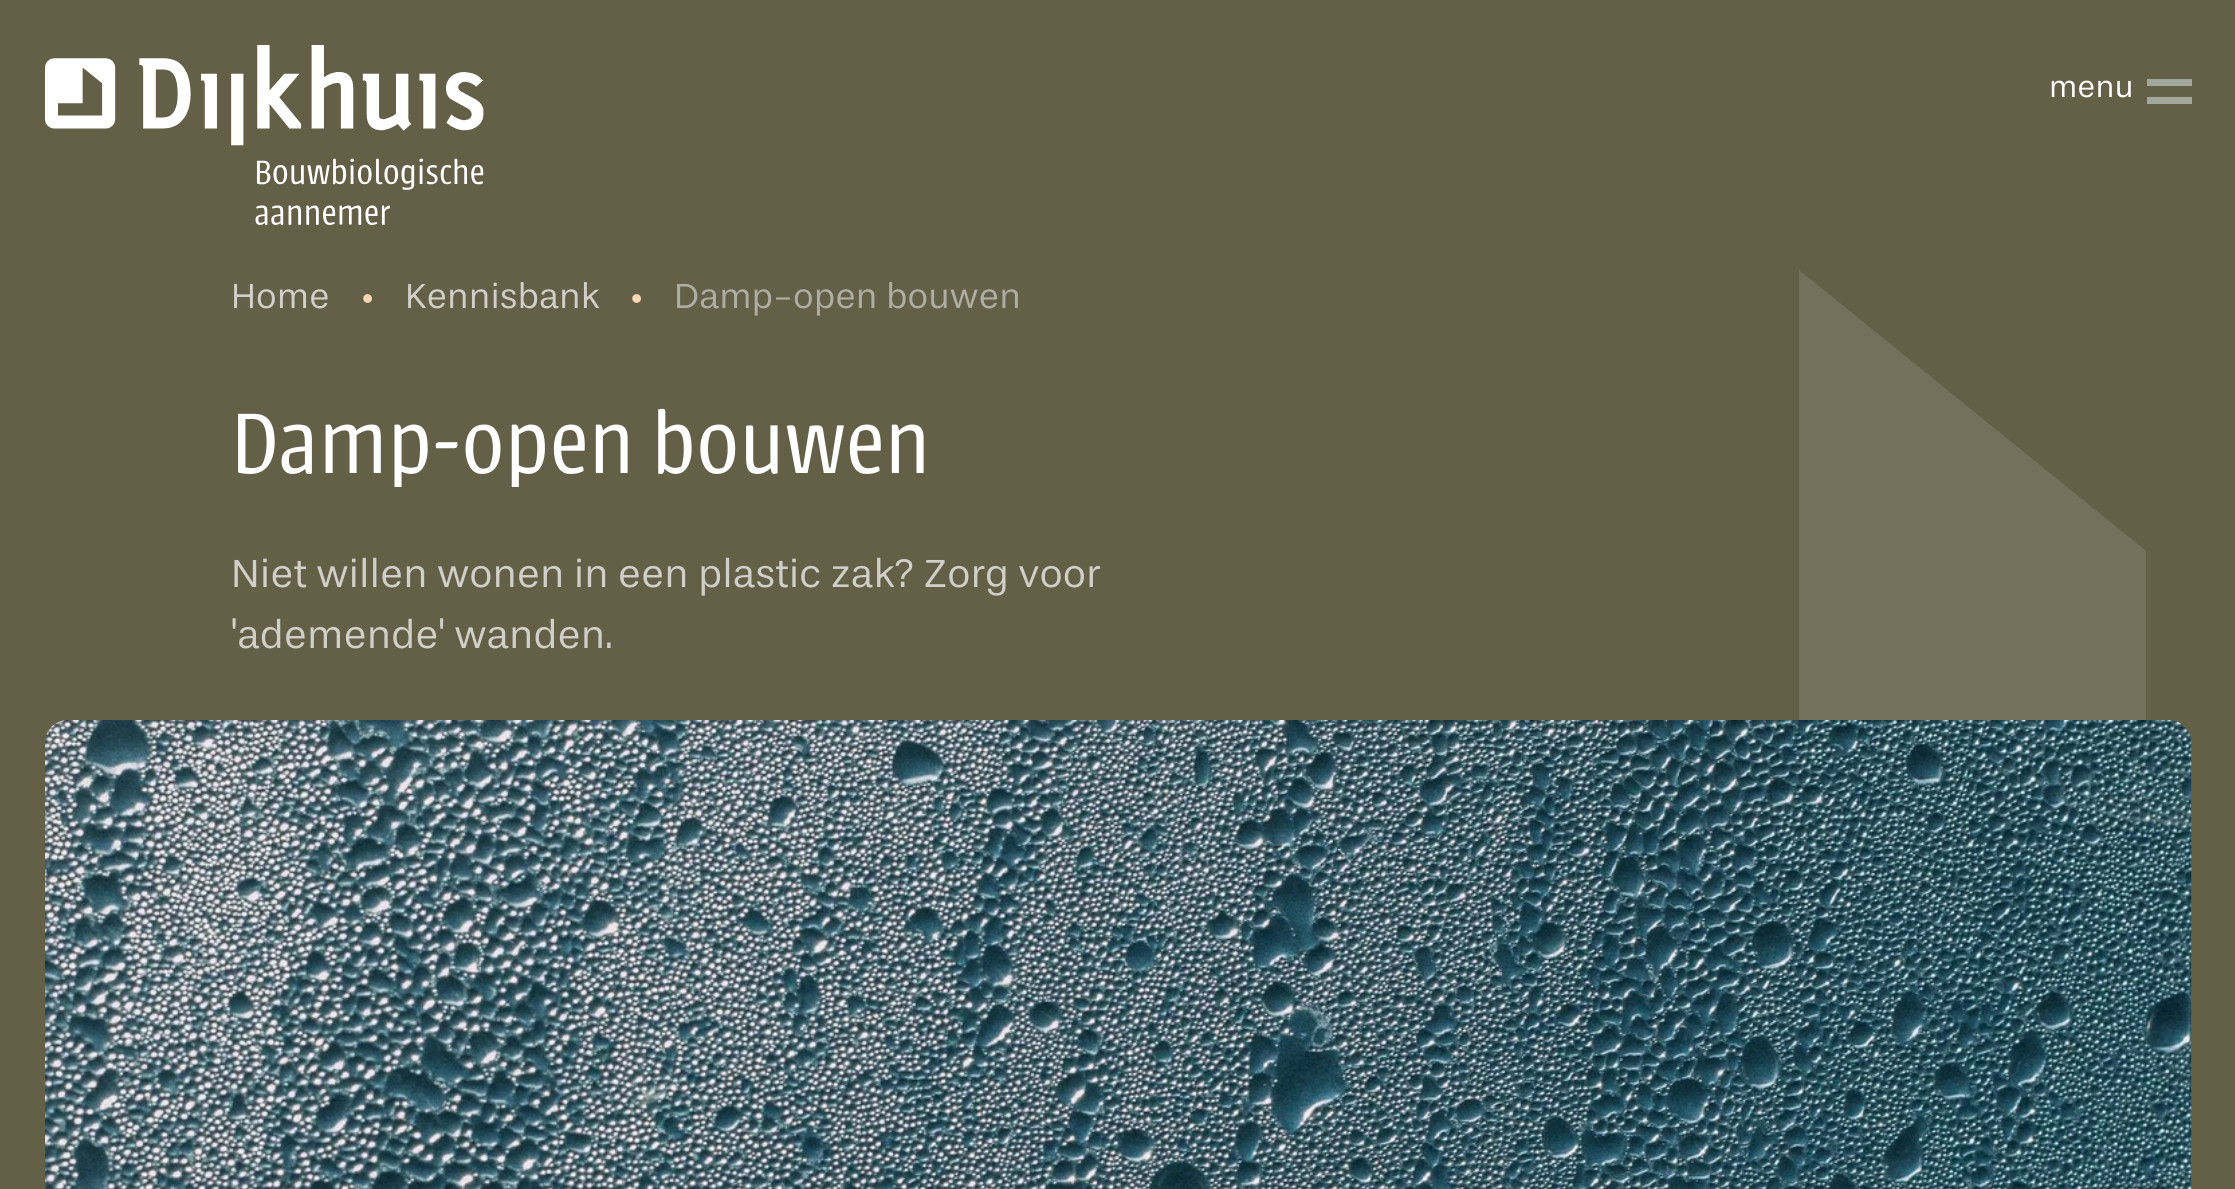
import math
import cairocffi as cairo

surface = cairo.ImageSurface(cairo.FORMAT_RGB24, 2235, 1189)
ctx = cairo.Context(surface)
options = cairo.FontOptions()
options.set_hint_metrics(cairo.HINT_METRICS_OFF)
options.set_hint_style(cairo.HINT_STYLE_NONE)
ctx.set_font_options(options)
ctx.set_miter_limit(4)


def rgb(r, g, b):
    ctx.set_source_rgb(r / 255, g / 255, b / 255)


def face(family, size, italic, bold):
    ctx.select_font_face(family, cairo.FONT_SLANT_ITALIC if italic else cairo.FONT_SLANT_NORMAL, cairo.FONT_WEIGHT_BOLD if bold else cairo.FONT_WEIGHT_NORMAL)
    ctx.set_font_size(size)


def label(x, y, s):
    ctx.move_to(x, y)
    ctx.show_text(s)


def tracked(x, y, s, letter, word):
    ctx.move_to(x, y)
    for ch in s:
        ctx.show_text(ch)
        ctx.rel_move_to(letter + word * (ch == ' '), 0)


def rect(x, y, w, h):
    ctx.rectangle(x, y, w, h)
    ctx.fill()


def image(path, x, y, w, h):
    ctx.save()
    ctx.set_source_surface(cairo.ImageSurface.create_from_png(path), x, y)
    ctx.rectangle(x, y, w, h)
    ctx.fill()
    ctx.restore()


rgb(100, 96, 72)
ctx.paint()
image('image0.png', 45, 45, 439, 180)
face('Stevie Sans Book', 31.5, 0, 0)
rgb(255, 255, 255)
label(2049, 97, 'menu')
rgb(163, 168, 156)
rect(2147, 79, 45, 7)
rect(2147, 97, 45, 7)
rgb(116, 112, 90)
ctx.new_path()
ctx.move_to(1799, 270)
ctx.line_to(1799, 909)
ctx.line_to(1359, 909)
ctx.line_to(1359, 1128)
ctx.line_to(2146, 1128)
ctx.line_to(2146, 551)
ctx.close_path()
ctx.fill()
face('Stevie Sans Book', 36, 0, 0)
rgb(209, 207, 200)
label(231, 308, 'Home')
rgb(252, 215, 184)
label(361, 308, '•')
rgb(209, 207, 200)
label(405, 308, 'Kennisbank')
rgb(252, 215, 184)
label(630, 308, '•')
rgb(176, 174, 162)
label(674, 308, 'Damp-open bouwen')
face('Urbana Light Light', 94.5, 0, 0)
rgb(255, 255, 255)
label(231, 473, 'Damp-open bouwen')
face('Stevie Sans Book', 40.5, 0, 0)
rgb(209, 207, 200)
tracked(231, 587, 'Niet willen wonen in een plastic zak? Zorg voor', 0, -0.25)
label(231, 648, '\'ademende\' wanden.')
image('image1.png', 45, 720, 2147, 469)
surface.write_to_png('render.png')
